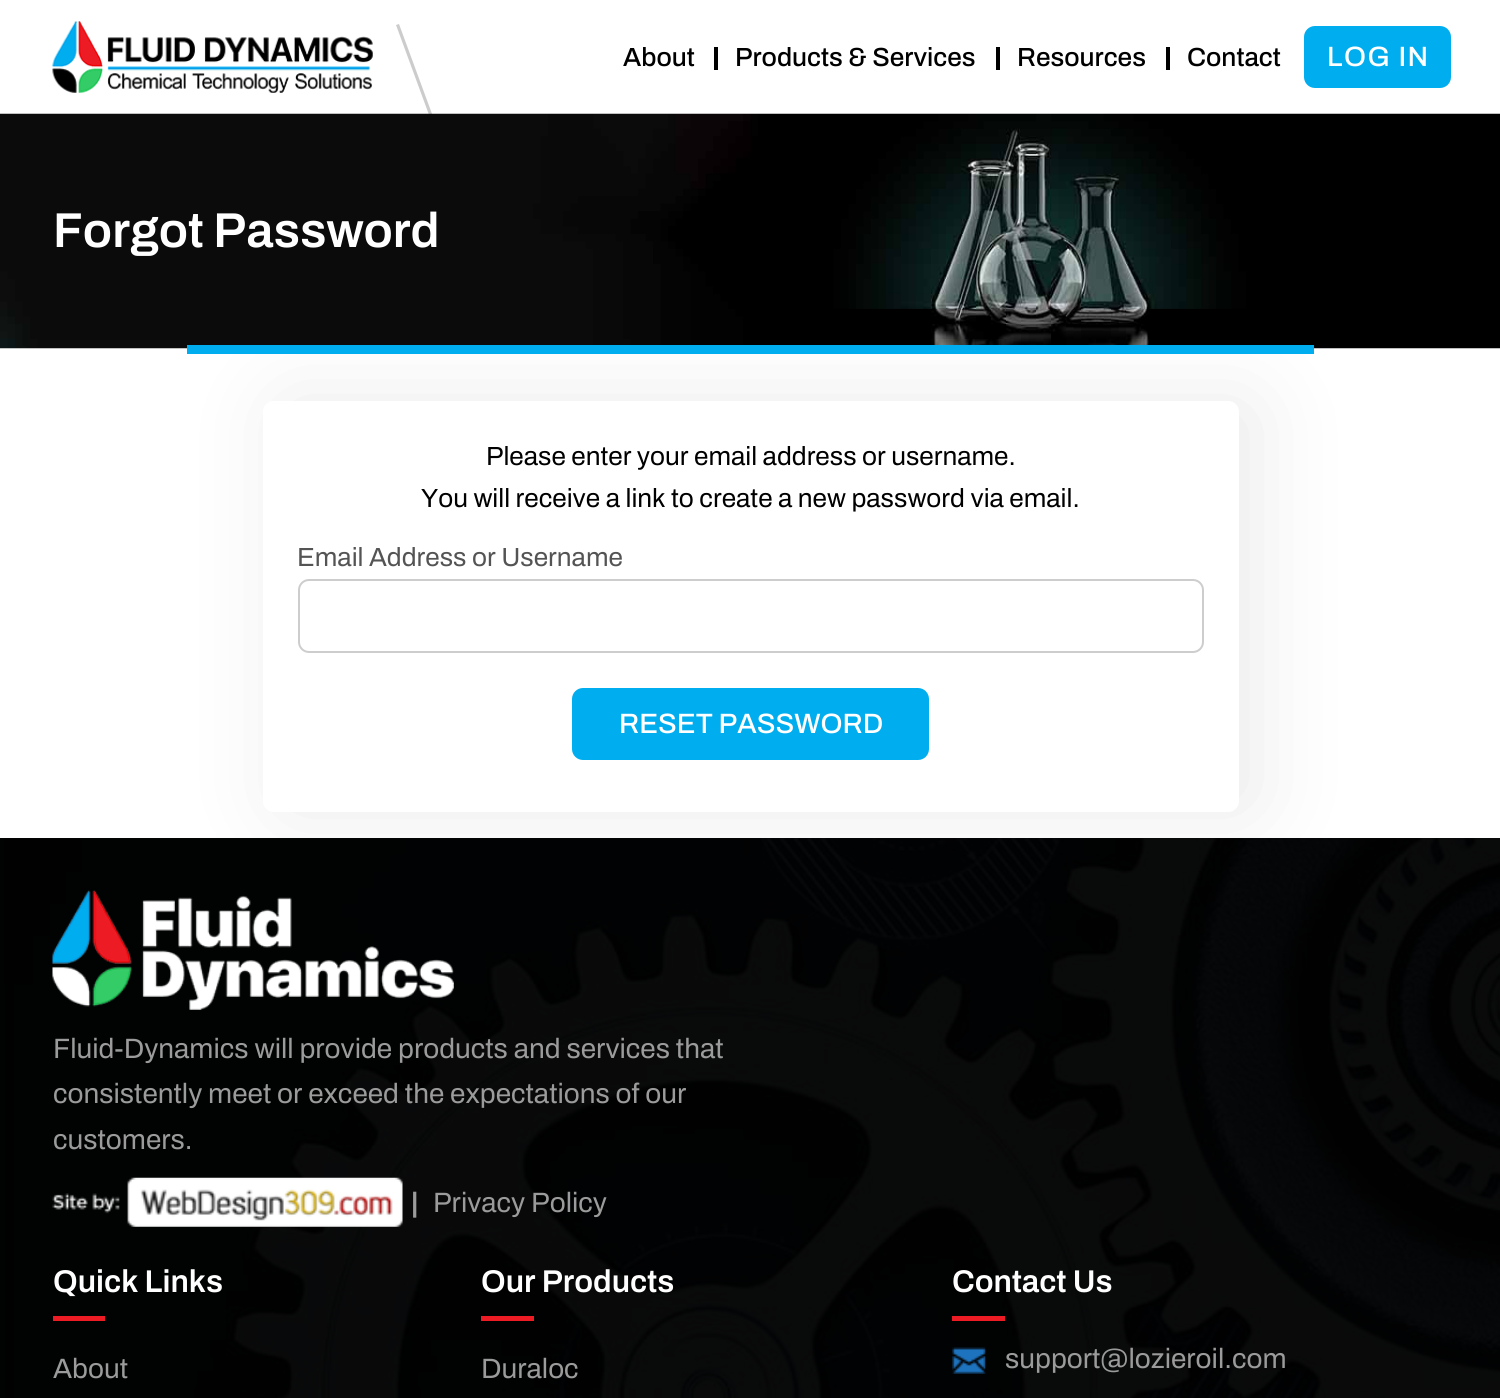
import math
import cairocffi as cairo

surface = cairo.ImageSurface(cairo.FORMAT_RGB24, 1500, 1398)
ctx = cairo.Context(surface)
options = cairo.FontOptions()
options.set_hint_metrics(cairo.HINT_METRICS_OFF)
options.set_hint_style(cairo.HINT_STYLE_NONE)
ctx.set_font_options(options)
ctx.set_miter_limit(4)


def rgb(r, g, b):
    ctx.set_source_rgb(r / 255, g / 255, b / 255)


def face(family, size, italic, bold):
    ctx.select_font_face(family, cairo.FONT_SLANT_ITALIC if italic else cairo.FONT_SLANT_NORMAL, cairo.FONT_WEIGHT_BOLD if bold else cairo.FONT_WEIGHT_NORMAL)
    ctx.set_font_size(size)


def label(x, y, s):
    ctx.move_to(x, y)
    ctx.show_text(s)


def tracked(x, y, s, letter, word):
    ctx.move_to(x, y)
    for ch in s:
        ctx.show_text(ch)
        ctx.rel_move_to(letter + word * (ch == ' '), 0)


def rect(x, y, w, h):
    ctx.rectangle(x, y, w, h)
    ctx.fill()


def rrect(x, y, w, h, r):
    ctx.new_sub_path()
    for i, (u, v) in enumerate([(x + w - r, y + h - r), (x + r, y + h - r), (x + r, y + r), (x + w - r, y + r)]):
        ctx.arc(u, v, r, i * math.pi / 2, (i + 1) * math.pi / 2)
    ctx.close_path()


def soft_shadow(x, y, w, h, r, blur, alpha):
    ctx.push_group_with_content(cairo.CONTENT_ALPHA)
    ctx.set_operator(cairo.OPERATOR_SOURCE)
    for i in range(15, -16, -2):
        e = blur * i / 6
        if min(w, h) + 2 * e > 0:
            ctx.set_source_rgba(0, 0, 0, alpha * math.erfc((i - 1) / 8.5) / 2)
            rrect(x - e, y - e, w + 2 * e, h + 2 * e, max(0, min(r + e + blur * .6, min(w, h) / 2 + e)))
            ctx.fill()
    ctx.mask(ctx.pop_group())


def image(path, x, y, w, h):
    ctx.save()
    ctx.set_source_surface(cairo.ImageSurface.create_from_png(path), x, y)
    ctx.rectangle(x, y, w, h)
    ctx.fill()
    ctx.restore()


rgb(255, 255, 255)
ctx.paint()
image('image0.png', 52, 21, 321, 72)
rgb(204, 204, 204)
ctx.new_path()
ctx.move_to(396, 25)
ctx.line_to(399, 24)
ctx.line_to(435, 122)
ctx.line_to(432, 123)
ctx.close_path()
ctx.fill()
face('Archivo Medium', 26.25, 0, 0)
rgb(0, 0, 0)
label(623, 66, 'About')
rect(714, 47, 4, 23)
label(735, 66, 'Products & Services')
rect(996, 47, 4, 23)
label(1017, 66, 'Resources')
rect(1166, 47, 4, 23)
label(1187, 66, 'Contact')
rgb(0, 173, 239)
rrect(1306, 28, 143, 58, 9)
ctx.fill_preserve()
ctx.set_line_width(4)
ctx.stroke()
face('Archivo Medium', 28, 0, 0)
rgb(255, 255, 255)
tracked(1327, 66, 'LOG IN', 1.5, 0)
ctx.save()
ctx.set_fill_rule(cairo.FILL_RULE_EVEN_ODD)
ctx.new_path()
ctx.move_to(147, 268)
ctx.line_to(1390, 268)
ctx.line_to(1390, 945)
ctx.line_to(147, 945)
ctx.close_path()
ctx.move_to(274, 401)
ctx.line_to(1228, 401)
ctx.curve_to(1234, 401, 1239, 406, 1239, 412)
ctx.line_to(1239, 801)
ctx.curve_to(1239, 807, 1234, 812, 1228, 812)
ctx.line_to(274, 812)
ctx.curve_to(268, 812, 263, 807, 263, 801)
ctx.line_to(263, 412)
ctx.curve_to(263, 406, 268, 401, 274, 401)
ctx.close_path()
ctx.clip()
rgb(45, 45, 45)
soft_shadow(280, 401, 977, 411, 11, 44, 0.1)
ctx.restore()
image('image1.png', 0, 113, 1500, 236)
face('Archivo SemiBold', 49, 0, 0)
label(53, 247, 'Forgot Password')
rgb(0, 173, 239)
rect(187, 345, 1127, 9)
face('Archivo', 26.25, 0, 0)
rgb(0, 0, 0)
label(486, 465, 'Please enter your email address or username.')
label(421, 507, 'You will receive a link to create a new password via email.')
rgb(84, 84, 84)
label(297, 566, 'Email Address or Username')
rrect(299, 580, 904, 72, 10)
rgb(205, 205, 205)
ctx.set_line_width(2)
ctx.stroke()
rgb(0, 173, 239)
rrect(574, 690, 353, 68, 9)
ctx.fill_preserve()
ctx.set_line_width(4)
ctx.stroke()
face('Archivo Medium', 28, 0, 0)
rgb(255, 255, 255)
label(619, 733, 'RESET PASSWORD')
image('image2.png', 0, 838, 1500, 560)
ctx.set_source_rgba(0, 0, 0, 0.96)
rect(0, 838, 1500, 560)
image('image3.png', 52, 890, 402, 120)
face('Archivo', 28, 0, 0)
rgb(155, 155, 155)
label(53, 1058, 'Fluid-Dynamics will provide products and services that')
label(53, 1103, 'consistently meet or exceed the expectations of our')
label(53, 1149, 'customers.')
image('image4.png', 52, 1177, 351, 50)
face('Archivo ExtraBold', 28, 0, 0)
label(411, 1212, '|')
face('Archivo', 28, 0, 0)
label(433, 1212, 'Privacy Policy')
face('Archivo SemiBold', 31.5, 0, 0)
rgb(255, 255, 255)
label(53, 1292, 'Quick Links')
rgb(237, 27, 36)
rect(53, 1316, 52, 5)
face('Archivo', 28, 0, 0)
rgb(155, 155, 155)
label(53, 1378, 'About')
face('Archivo SemiBold', 31.5, 0, 0)
rgb(255, 255, 255)
label(481, 1292, 'Our Products')
rgb(237, 27, 36)
rect(481, 1316, 53, 5)
face('Archivo', 28, 0, 0)
rgb(155, 155, 155)
label(481, 1378, 'Duraloc')
face('Archivo SemiBold', 31.5, 0, 0)
rgb(255, 255, 255)
label(952, 1292, 'Contact Us')
rgb(237, 27, 36)
rect(952, 1316, 53, 5)
image('image5.png', 952, 1347, 34, 27)
face('Archivo', 28, 0, 0)
rgb(155, 155, 155)
label(1005, 1368, 'support@lozieroil.com')
surface.write_to_png('render.png')
